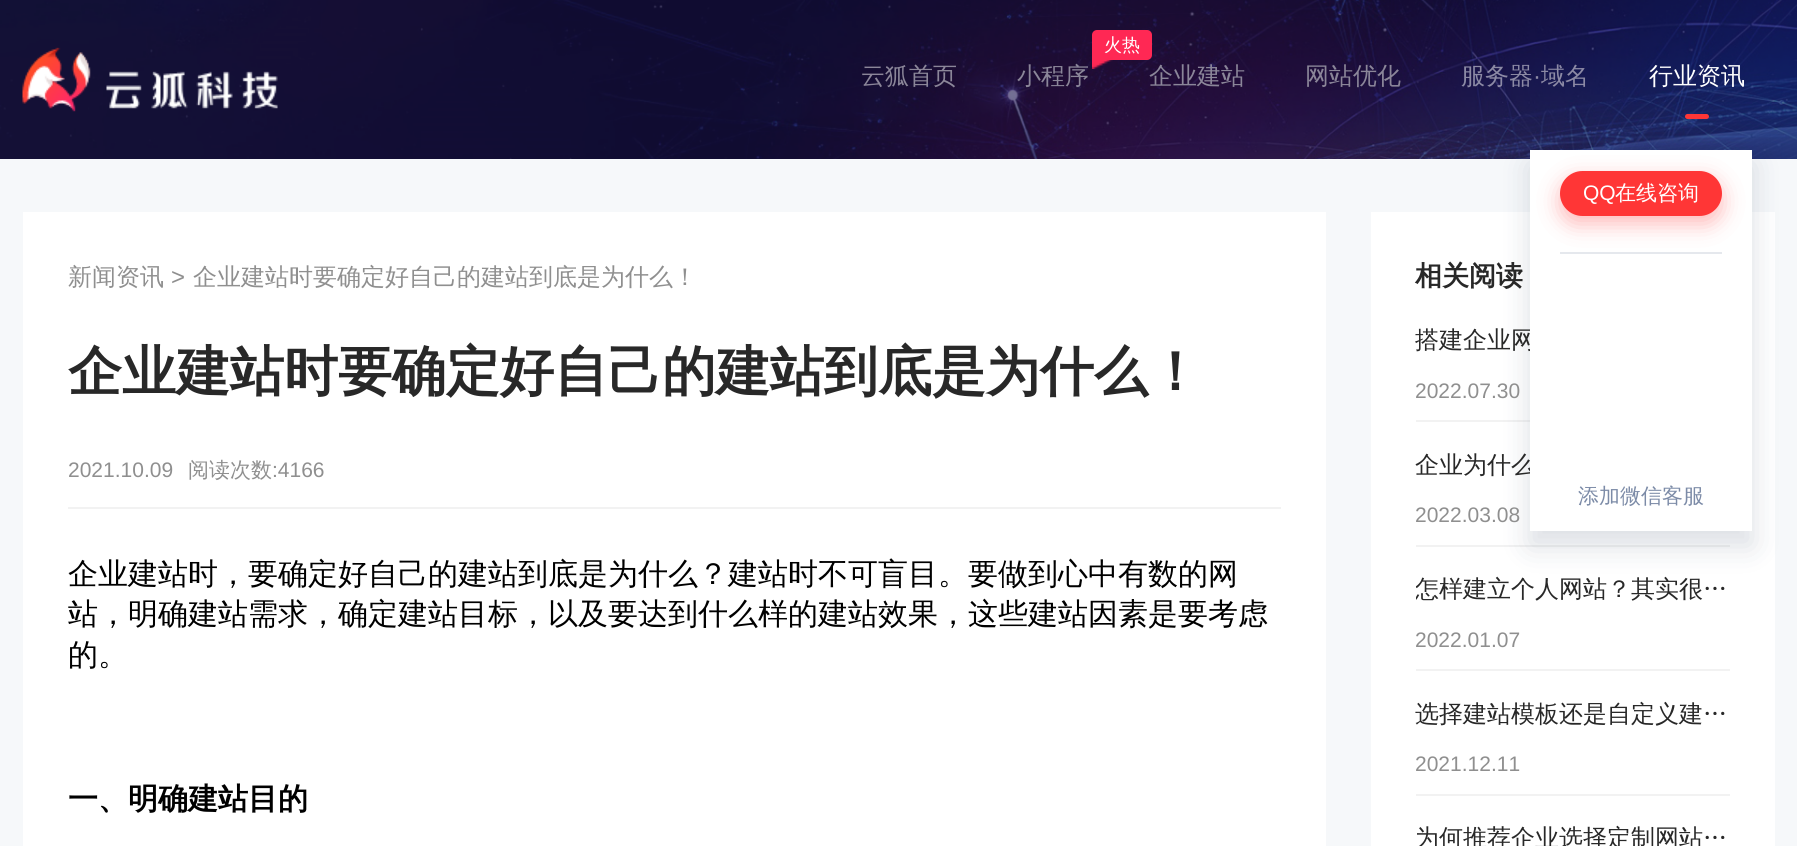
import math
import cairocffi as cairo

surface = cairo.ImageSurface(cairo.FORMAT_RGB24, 1797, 846)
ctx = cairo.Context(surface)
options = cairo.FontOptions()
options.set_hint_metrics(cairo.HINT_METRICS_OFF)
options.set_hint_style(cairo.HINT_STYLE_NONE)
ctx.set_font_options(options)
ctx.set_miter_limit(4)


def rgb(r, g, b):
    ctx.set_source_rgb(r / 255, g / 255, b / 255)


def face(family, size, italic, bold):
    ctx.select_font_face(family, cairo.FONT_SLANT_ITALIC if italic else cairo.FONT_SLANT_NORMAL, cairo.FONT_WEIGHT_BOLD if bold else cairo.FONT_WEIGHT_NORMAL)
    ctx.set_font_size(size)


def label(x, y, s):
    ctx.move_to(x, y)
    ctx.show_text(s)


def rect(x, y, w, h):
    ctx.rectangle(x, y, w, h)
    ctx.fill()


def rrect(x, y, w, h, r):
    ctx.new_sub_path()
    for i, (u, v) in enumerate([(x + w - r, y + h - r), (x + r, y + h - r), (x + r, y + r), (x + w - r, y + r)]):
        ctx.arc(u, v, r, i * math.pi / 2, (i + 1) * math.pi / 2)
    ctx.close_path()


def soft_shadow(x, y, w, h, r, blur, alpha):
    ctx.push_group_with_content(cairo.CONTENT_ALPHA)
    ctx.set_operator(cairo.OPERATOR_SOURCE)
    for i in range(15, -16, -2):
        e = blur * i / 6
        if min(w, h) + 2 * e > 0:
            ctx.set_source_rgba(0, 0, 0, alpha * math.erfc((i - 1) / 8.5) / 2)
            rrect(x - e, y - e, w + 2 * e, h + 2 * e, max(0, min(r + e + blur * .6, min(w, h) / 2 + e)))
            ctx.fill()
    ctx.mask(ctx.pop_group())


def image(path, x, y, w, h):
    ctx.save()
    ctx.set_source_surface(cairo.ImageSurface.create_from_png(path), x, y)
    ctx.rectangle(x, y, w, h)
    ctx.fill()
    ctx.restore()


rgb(246, 248, 250)
ctx.paint()
image('image0.png', 0, 0, 1797, 159)
image('image1.png', 22, 47, 256, 65)
face('WenQuanYi Zen Hei Medium', 24, 0, 0)
rgb(139, 134, 153)
label(861, 84, '云狐首页')
rgb(255, 40, 84)
rrect(1092, 30, 60, 30, 5)
ctx.fill()
face('WenQuanYi Zen Hei Medium', 18, 0, 0)
rgb(255, 255, 255)
label(1104, 51, '火热')
image('image2.png', 1092, 55, 21, 14)
face('WenQuanYi Zen Hei Medium', 24, 0, 0)
rgb(139, 134, 153)
label(1017, 84, '小程序')
label(1149, 84, '企业建站')
label(1305, 84, '网站优化')
rgb(140, 138, 165)
label(1461, 84, '服务器')
face('Liberation Sans', 24, 0, 0)
label(1533, 84, '·')
face('WenQuanYi Zen Hei Medium', 24, 0, 0)
label(1541, 84, '域名')
rgb(255, 255, 255)
label(1649, 84, '行业资讯')
rgb(255, 54, 54)
rrect(1685, 114, 24, 5, 2.5)
ctx.fill()
rgb(255, 255, 255)
rect(1371, 212, 404, 634)
rgb(242, 242, 242)
rect(1416, 420, 114, 2)
rect(1416, 545, 314, 2)
rgb(15, 37, 70)
soft_shadow(1530, 165, 222, 381, 0, 15, 0.15)
rgb(40, 40, 40)
label(1415, 348, '搭建企业网')
label(1415, 473, '企业为什么')
rgb(255, 255, 255)
rect(1530, 150, 222, 381)
rgb(229, 232, 237)
rect(1560, 252, 162, 2)
rgb(255, 54, 54)
soft_shadow(1560, 179, 162, 45, 22.5, 11, 0.35)
rgb(255, 54, 54)
rrect(1560, 171, 162, 45, 22.5)
ctx.fill()
face('Liberation Sans', 21, 0, 0)
rgb(255, 255, 255)
label(1583, 200, 'QQ')
face('WenQuanYi Zen Hei Medium', 21, 0, 0)
label(1615, 200, '在线咨询')
rgb(124, 139, 167)
label(1578, 503, '添加微信客服')
rgb(255, 255, 255)
rect(23, 212, 1303, 634)
face('WenQuanYi Zen Hei Medium', 24, 0, 0)
rgb(143, 143, 143)
label(68, 285, '新闻资讯')
face('Liberation Sans', 24, 0, 0)
label(171, 285, '>')
face('WenQuanYi Zen Hei Medium', 24, 0, 0)
label(193, 285, '企业建站时要确定好自己的建站到底是为什么！')
face('WenQuanYi Zen Hei', 54, 0, 1)
rgb(40, 40, 40)
label(68, 390, '企业建站时要确定好自己的建站到底是为什么！')
rgb(242, 242, 242)
rect(68, 507, 1213, 2)
face('Liberation Sans', 21, 0, 0)
rgb(143, 143, 143)
label(68, 477, '2021.10.09')
face('WenQuanYi Zen Hei Medium', 21, 0, 0)
label(188, 477, '阅读次数')
face('Liberation Sans', 21, 0, 0)
label(272, 477, ':4166')
face('WenQuanYi Zen Hei Medium', 30, 0, 0)
rgb(0, 0, 0)
label(68, 584, '企业建站时，要确定好自己的建站到底是为什么？建站时不可盲目。要做到心中有数的网')
label(68, 624, '站，明确建站需求，确定建站目标，以及要达到什么样的建站效果，这些建站因素是要考虑')
label(68, 665, '的。')
face('WenQuanYi Zen Hei', 30, 0, 1)
label(68, 809, '一、明确建站目的')
face('WenQuanYi Zen Hei', 27, 0, 1)
rgb(40, 40, 40)
label(1415, 285, '相关阅读')
face('Liberation Sans', 21, 0, 0)
rgb(143, 143, 143)
label(1415, 398, '2022.07.30')
label(1415, 522, '2022.03.08')
rgb(242, 242, 242)
rect(1416, 669, 314, 2)
ctx.save()
ctx.rectangle(1416, 569, 314, 40)
ctx.clip()
face('WenQuanYi Zen Hei Medium', 24, 0, 0)
rgb(40, 40, 40)
label(1415, 597, '怎样建立个人网站？其实很…')
ctx.restore()
rgb(143, 143, 143)
label(1415, 647, '2022.01.07')
rgb(242, 242, 242)
rect(1416, 794, 314, 2)
face('WenQuanYi Zen Hei Medium', 24, 0, 0)
rgb(40, 40, 40)
label(1415, 722, '选择建站模板还是自定义建…')
face('Liberation Sans', 21, 0, 0)
rgb(143, 143, 143)
label(1415, 771, '2021.12.11')
face('WenQuanYi Zen Hei Medium', 24, 0, 0)
rgb(40, 40, 40)
label(1415, 846, '为何推荐企业选择定制网站…')
surface.write_to_png('render.png')
